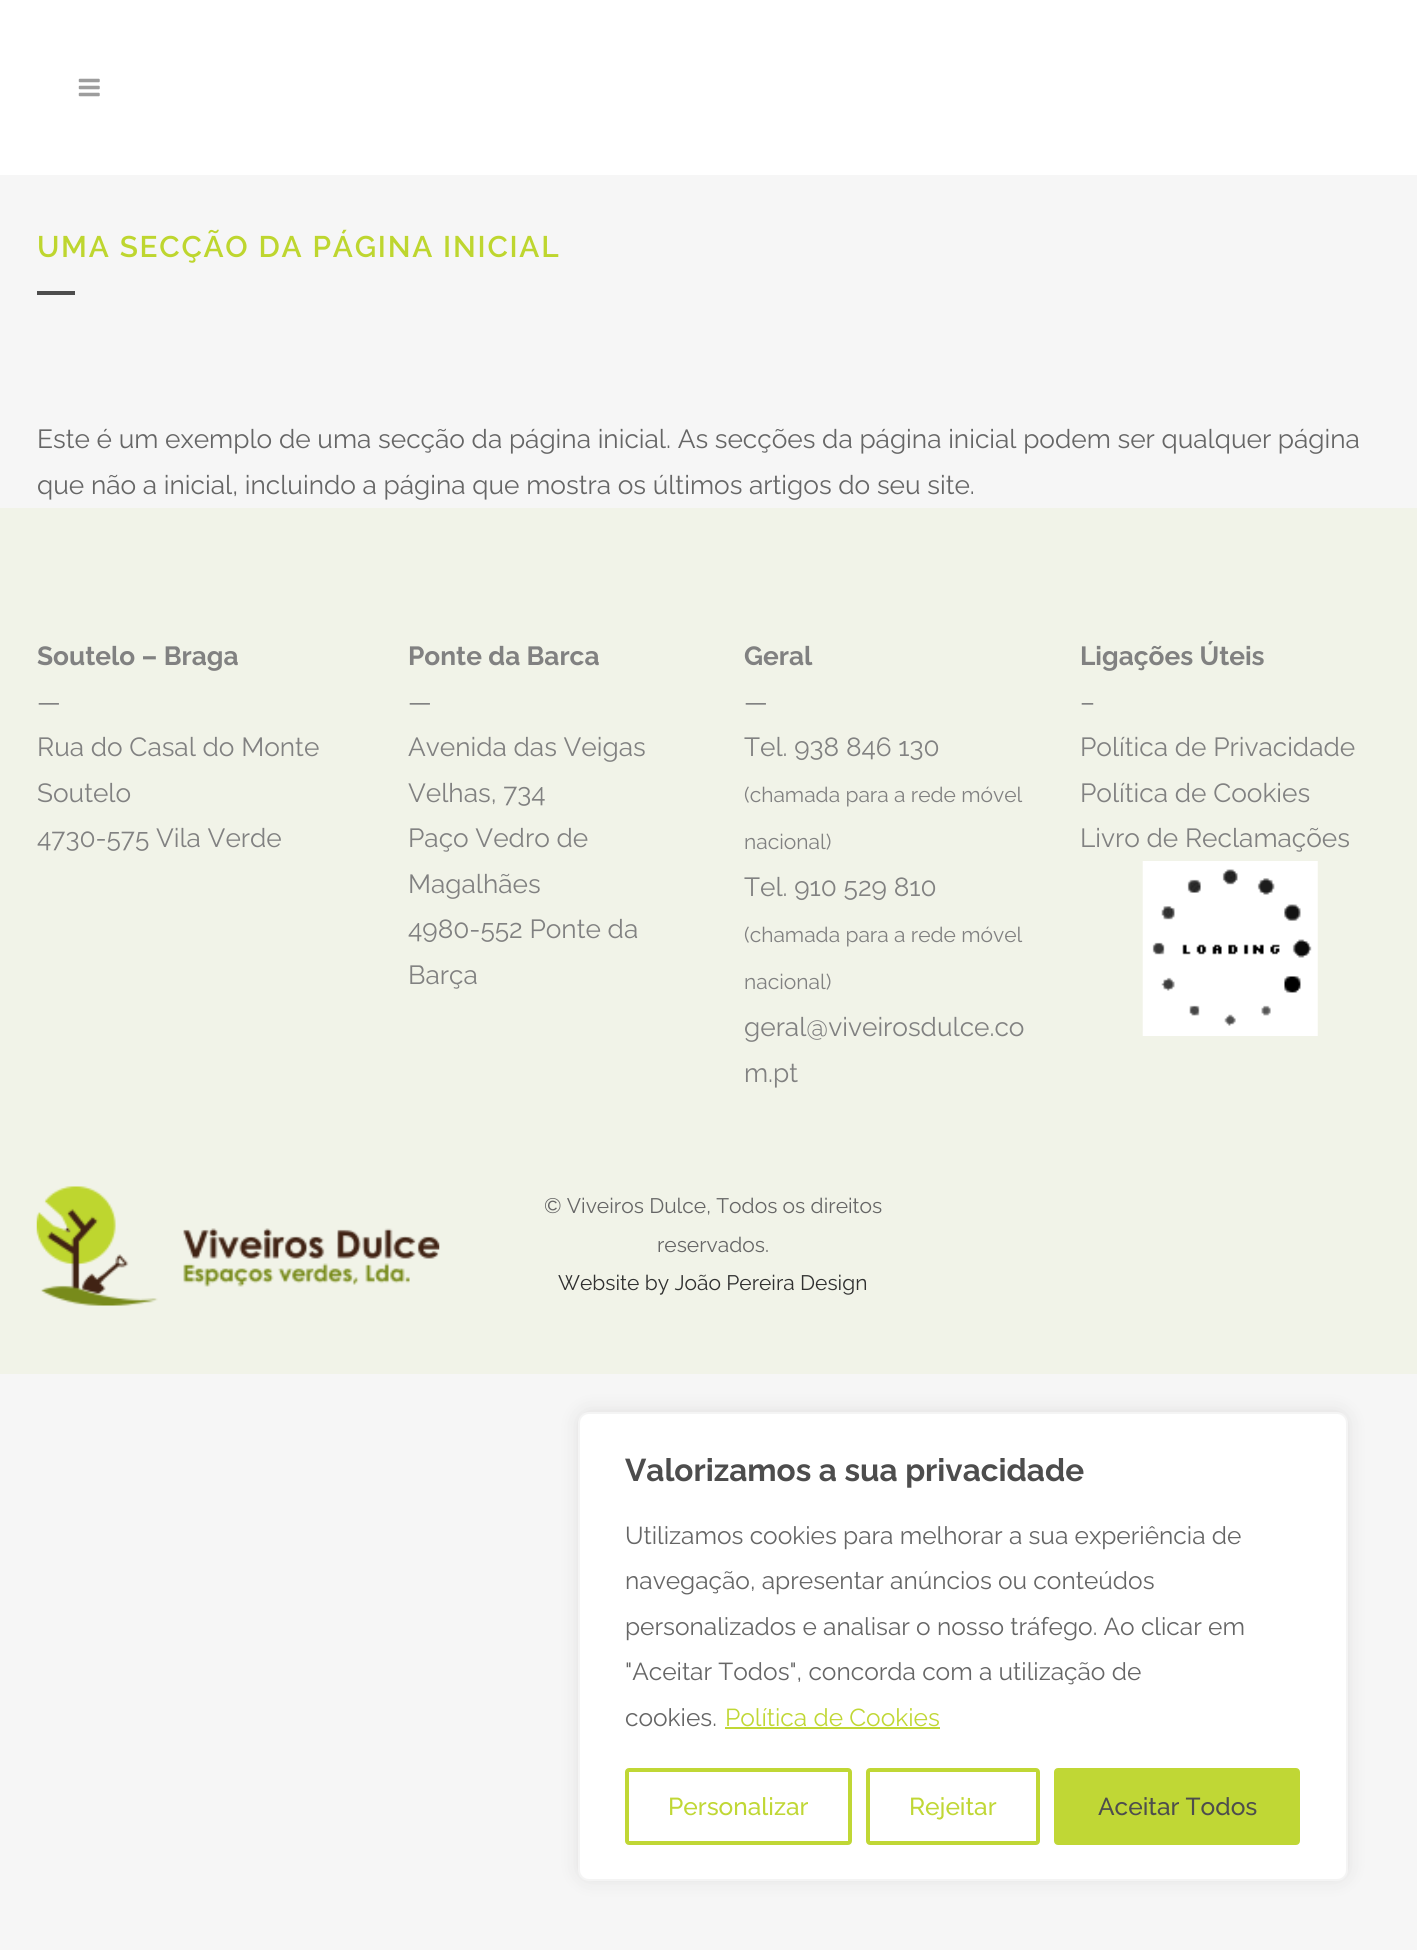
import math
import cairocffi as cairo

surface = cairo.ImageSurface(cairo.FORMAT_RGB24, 1417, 1950)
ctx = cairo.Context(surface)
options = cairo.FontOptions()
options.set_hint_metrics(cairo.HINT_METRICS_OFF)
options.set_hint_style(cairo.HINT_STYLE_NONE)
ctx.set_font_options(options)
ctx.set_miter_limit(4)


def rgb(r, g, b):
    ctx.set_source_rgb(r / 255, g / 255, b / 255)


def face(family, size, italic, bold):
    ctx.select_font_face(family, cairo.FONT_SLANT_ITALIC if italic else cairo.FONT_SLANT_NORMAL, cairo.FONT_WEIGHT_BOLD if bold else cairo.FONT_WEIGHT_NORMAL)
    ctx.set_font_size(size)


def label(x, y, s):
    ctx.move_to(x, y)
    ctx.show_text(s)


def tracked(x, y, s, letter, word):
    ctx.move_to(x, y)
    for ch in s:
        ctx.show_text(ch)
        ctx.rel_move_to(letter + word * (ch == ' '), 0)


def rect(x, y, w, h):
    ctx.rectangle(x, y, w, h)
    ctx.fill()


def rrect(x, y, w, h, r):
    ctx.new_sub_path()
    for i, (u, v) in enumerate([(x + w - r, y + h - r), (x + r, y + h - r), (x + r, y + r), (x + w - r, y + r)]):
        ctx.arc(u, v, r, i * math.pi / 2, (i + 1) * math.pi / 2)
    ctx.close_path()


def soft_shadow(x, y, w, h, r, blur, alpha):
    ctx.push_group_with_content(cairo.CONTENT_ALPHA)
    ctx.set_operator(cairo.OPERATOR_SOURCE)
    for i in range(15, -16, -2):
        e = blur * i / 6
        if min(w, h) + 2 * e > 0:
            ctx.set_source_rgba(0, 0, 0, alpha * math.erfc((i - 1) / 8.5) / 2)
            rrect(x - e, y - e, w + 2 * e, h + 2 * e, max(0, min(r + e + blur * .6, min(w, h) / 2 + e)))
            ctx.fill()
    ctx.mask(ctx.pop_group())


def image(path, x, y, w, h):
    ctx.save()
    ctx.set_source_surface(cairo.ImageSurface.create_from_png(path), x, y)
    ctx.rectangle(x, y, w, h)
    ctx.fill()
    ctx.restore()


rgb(246, 246, 246)
ctx.paint()
rgb(255, 255, 255)
rect(0, 0, 1417, 175)
image('image0.png', 78, 78, 22, 19)
face('Raleway SemiBold', 29.75, 0, 0)
rgb(190, 214, 47)
tracked(37, 257, 'UMA SECÇÃO DA PÁGINA INICIAL', 1.75, 0)
rgb(77, 77, 77)
rect(37, 291, 38, 4)
face('Raleway', 26.25, 0, 0)
rgb(102, 102, 102)
label(37, 448, 'Este é um exemplo de uma secção da página inicial. As secções da página inicial podem ser qualquer página')
label(37, 494, 'que não a inicial, incluindo a página que mostra os últimos artigos do seu site.')
rgb(241, 243, 232)
rect(0, 508, 1417, 866)
face('Raleway', 26.25, 0, 1)
rgb(129, 129, 129)
label(37, 665, 'Soutelo – Braga')
face('Raleway', 26.25, 0, 0)
label(37, 711, '—')
label(37, 756, 'Rua do Casal do Monte')
label(37, 802, 'Soutelo')
label(37, 847, '4730-575 Vila Verde')
face('Raleway', 26.25, 0, 1)
label(408, 665, 'Ponte da Barca')
face('Raleway', 26.25, 0, 0)
label(408, 711, '—')
label(408, 756, 'Avenida das Veigas')
label(408, 802, 'Velhas, 734')
label(408, 847, 'Paço Vedro de')
label(408, 893, 'Magalhães')
label(408, 938, '4980-552 Ponte da')
label(408, 984, 'Barça')
face('Raleway', 26.25, 0, 1)
label(744, 665, 'Geral')
face('Raleway', 26.25, 0, 0)
label(744, 711, '—')
label(744, 756, 'Tel. 938 846 130')
face('Raleway', 21, 0, 0)
label(744, 802, '(chamada para a rede móvel')
label(744, 849, 'nacional)')
face('Raleway', 26.25, 0, 0)
label(744, 896, 'Tel. 910 529 810')
face('Raleway', 21, 0, 0)
label(744, 942, '(chamada para a rede móvel')
label(744, 989, 'nacional)')
face('Raleway', 26.25, 0, 0)
label(744, 1036, 'geral@viveirosdulce.co')
label(744, 1082, 'm.pt')
face('Raleway', 26.25, 0, 1)
label(1080, 665, 'Ligações Úteis')
face('Raleway', 26.25, 0, 0)
label(1080, 711, '–')
label(1080, 756, 'Política de Privacidade')
label(1080, 802, 'Política de Cookies')
label(1080, 847, 'Livro de Reclamações')
image('image1.png', 1142, 861, 176, 175)
image('image2.png', 36, 1186, 404, 120)
face('Raleway', 21, 0, 0)
rgb(102, 102, 102)
label(544, 1213, '© Viveiros Dulce, Todos os direitos')
label(657, 1252, 'reservados.')
rgb(48, 48, 48)
label(558, 1290, 'Website by João Pereira Design')
rgb(172, 171, 171)
soft_shadow(578, 1411, 770, 469, 11, 9, 0.3)
rgb(255, 255, 255)
rrect(579, 1413, 768, 467, 10)
ctx.fill_preserve()
rgb(244, 244, 244)
ctx.stroke()
face('Raleway', 31.5, 0, 1)
rgb(77, 77, 77)
label(625, 1481, 'Valorizamos a sua privacidade')
face('Raleway', 24.5, 0, 0)
rgb(102, 102, 102)
label(625, 1544, 'Utilizamos cookies para melhorar a sua experiência de')
label(625, 1589, 'navegação, apresentar anúncios ou conteúdos')
label(625, 1635, 'personalizados e analisar o nosso tráfego. Ao clicar em')
label(625, 1680, '"Aceitar Todos", concorda com a utilização de')
label(625, 1726, 'cookies.')
rgb(192, 215, 53)
label(725, 1726, 'Política de Cookies')
rect(725, 1727, 215, 2)
rrect(627, 1770, 223, 73, 2)
ctx.set_line_width(4)
ctx.stroke()
face('Raleway Medium', 24.5, 0, 0)
label(668, 1815, 'Personalizar')
rrect(868, 1770, 170, 73, 2)
ctx.stroke()
label(909, 1815, 'Rejeitar')
rrect(1056, 1770, 242, 73, 2)
ctx.fill_preserve()
ctx.stroke()
rgb(77, 77, 77)
label(1098, 1815, 'Aceitar Todos')
surface.write_to_png('render.png')
